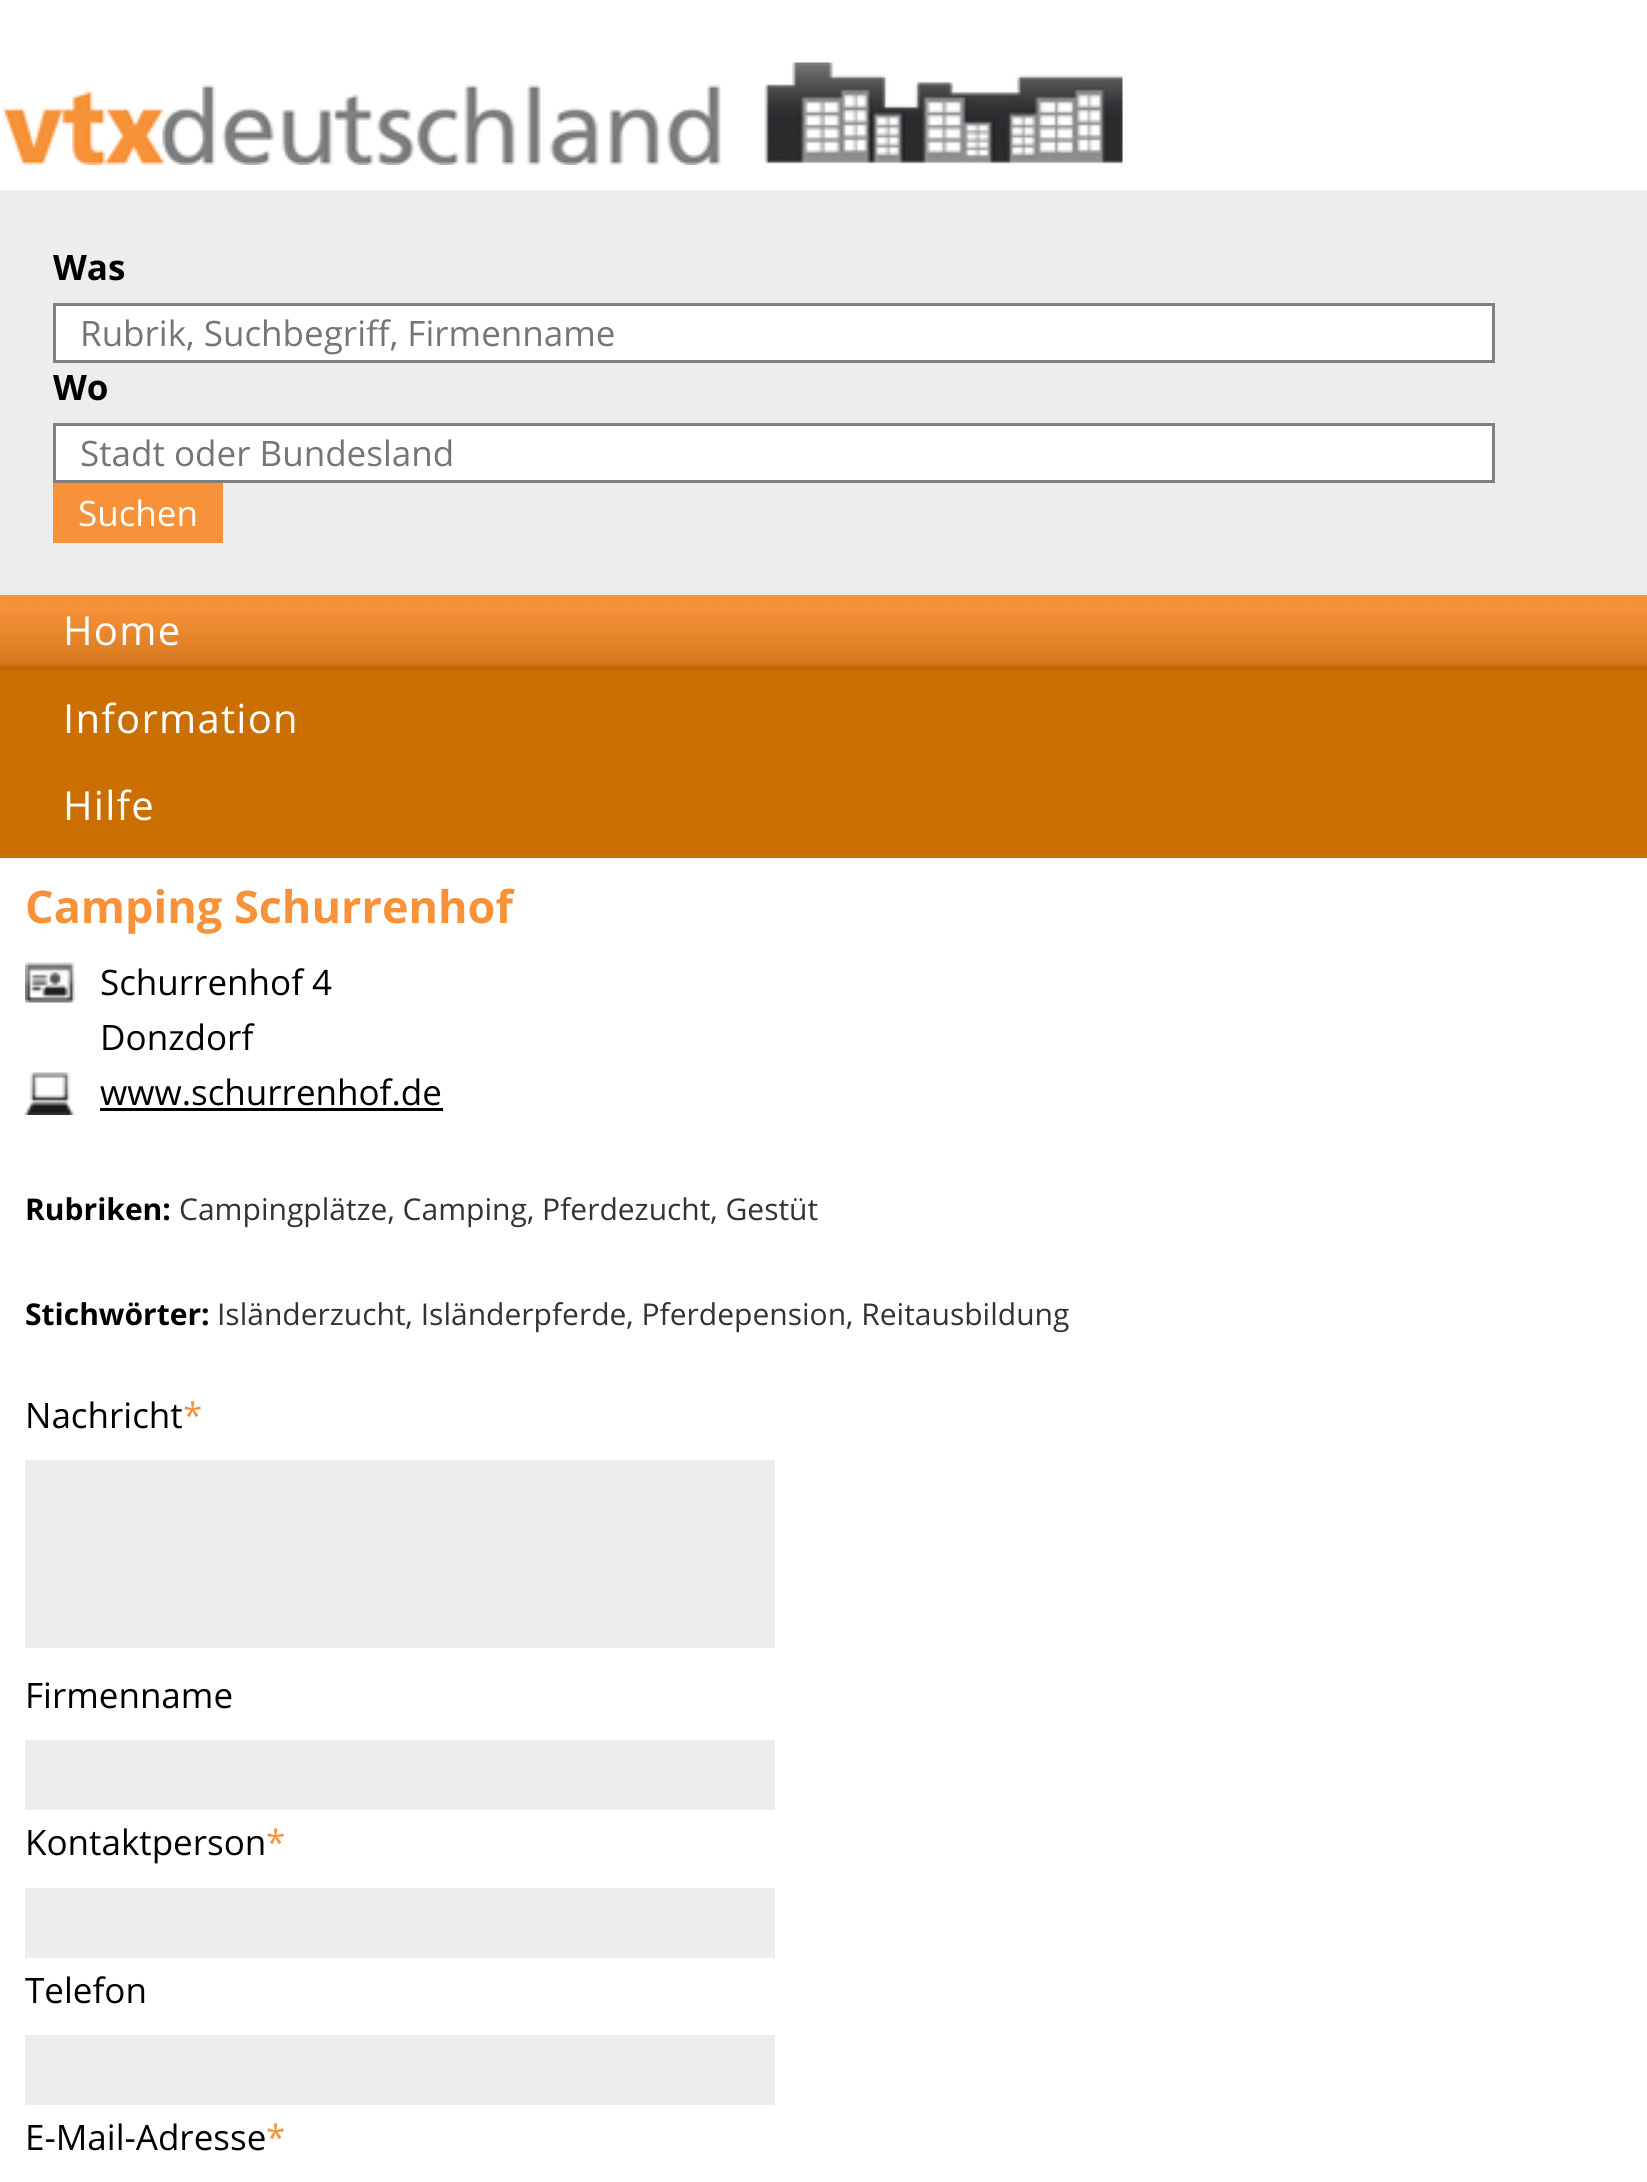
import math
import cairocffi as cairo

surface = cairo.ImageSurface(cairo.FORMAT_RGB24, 1647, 2182)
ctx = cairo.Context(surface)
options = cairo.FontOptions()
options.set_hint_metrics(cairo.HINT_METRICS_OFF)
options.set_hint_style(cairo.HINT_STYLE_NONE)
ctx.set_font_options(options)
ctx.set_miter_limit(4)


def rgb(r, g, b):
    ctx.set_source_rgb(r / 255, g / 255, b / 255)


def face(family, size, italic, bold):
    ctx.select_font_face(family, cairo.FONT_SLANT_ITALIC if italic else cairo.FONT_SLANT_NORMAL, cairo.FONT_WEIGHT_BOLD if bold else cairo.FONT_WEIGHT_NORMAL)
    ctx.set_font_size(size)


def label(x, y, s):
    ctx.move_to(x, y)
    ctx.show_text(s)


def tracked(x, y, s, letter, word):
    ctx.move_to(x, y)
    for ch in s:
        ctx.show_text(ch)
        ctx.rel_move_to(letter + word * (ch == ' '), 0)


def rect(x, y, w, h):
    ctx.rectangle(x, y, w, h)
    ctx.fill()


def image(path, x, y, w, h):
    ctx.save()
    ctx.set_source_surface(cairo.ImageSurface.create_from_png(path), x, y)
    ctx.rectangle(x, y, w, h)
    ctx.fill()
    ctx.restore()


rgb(255, 255, 255)
ctx.paint()
image('image0.png', 2, 62, 1121, 103)
rgb(236, 237, 237)
rect(0, 190, 1647, 405)
face('Open Sans', 35, 0, 1)
rgb(0, 0, 0)
label(53, 280, 'Was')
rgb(255, 255, 255)
ctx.rectangle(54.5, 304.5, 1439, 57)
ctx.fill_preserve()
rgb(128, 128, 128)
ctx.set_line_width(3)
ctx.stroke()
face('Open Sans', 35, 0, 0)
rgb(117, 117, 117)
label(80, 346, 'Rubrik, Suchbegriff, Firmenname')
face('Open Sans', 35, 0, 1)
rgb(0, 0, 0)
label(53, 400, 'Wo')
rgb(255, 255, 255)
ctx.rectangle(54.5, 424.5, 1439, 57)
ctx.fill_preserve()
rgb(128, 128, 128)
ctx.stroke()
face('Open Sans', 35, 0, 0)
rgb(117, 117, 117)
label(80, 466, 'Stadt oder Bundesland')
rgb(247, 146, 58)
rect(53, 483, 170, 60)
rgb(255, 255, 255)
label(78, 526, 'Suchen')
rgb(203, 111, 3)
rect(0, 670, 1647, 188)
image('image1.png', 0, 595, 1647, 75)
face('Open Sans', 40, 0, 0)
rgb(255, 255, 255)
tracked(63, 645, 'Home', 1.25, 0)
tracked(63, 733, 'Information', 1.25, 0)
tracked(63, 820, 'Hilfe', 1.25, 0)
face('Open Sans', 45, 0, 1)
rgb(247, 146, 58)
label(25, 923, 'Camping Schurrenhof')
image('image2.png', 25, 962, 50, 41)
face('Open Sans', 35, 0, 0)
rgb(0, 0, 0)
label(100, 995, 'Schurrenhof 4')
label(100, 1050, 'Donzdorf')
image('image3.png', 25, 1072, 50, 43)
label(100, 1105, 'www.schurrenhof.de')
rect(100, 1108, 343, 3)
face('Open Sans', 30, 0, 1)
label(25, 1220, 'Rubriken:')
face('Open Sans', 30, 0, 0)
rgb(51, 51, 51)
label(179, 1220, 'Campingplätze, Camping, Pferdezucht, Gestüt')
face('Open Sans', 30, 0, 1)
rgb(0, 0, 0)
label(25, 1325, 'Stichwörter:')
face('Open Sans', 30, 0, 0)
rgb(51, 51, 51)
label(217, 1325, 'Isländerzucht, Isländerpferde, Pferdepension, Reitausbildung')
face('Open Sans', 35, 0, 0)
rgb(0, 0, 0)
label(25, 1428, 'Nachricht')
rgb(247, 146, 58)
label(183, 1428, '*')
rgb(236, 237, 237)
rect(25, 1460, 750, 188)
rgb(0, 0, 0)
label(25, 1708, 'Firmenname')
rgb(236, 237, 237)
rect(25, 1740, 750, 70)
rgb(0, 0, 0)
label(25, 1855, 'Kontaktperson')
rgb(247, 146, 58)
label(266, 1855, '*')
rgb(236, 237, 237)
rect(25, 1888, 750, 70)
rgb(0, 0, 0)
label(25, 2003, 'Telefon')
rgb(236, 237, 237)
rect(25, 2035, 750, 70)
rgb(0, 0, 0)
label(25, 2150, 'E-Mail-Adresse')
rgb(247, 146, 58)
label(266, 2150, '*')
surface.write_to_png('render.png')
